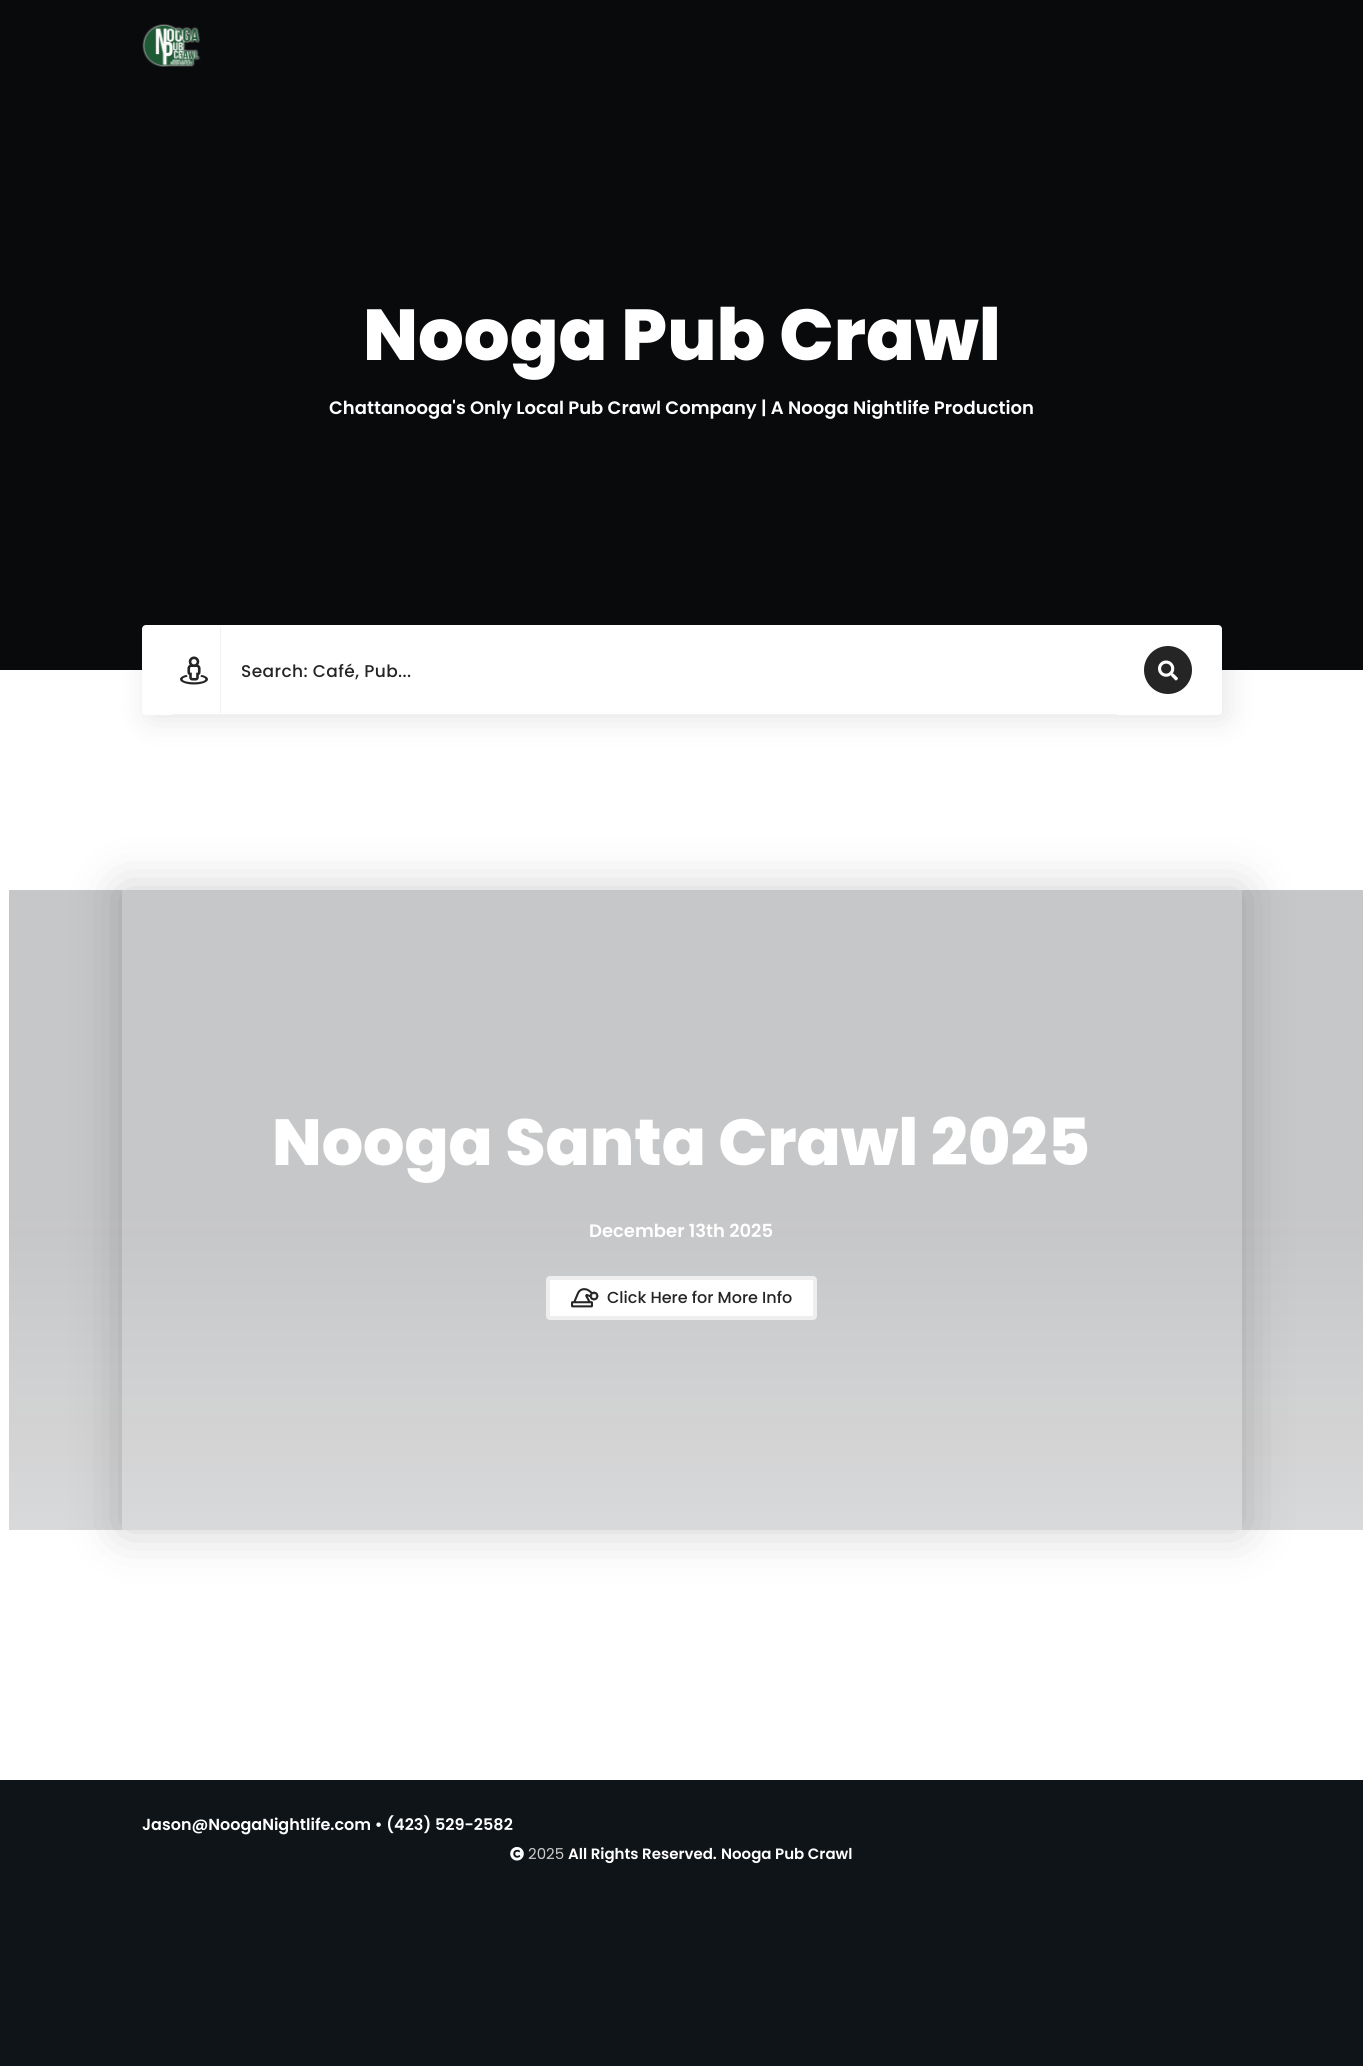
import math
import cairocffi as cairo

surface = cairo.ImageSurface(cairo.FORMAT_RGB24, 1363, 2066)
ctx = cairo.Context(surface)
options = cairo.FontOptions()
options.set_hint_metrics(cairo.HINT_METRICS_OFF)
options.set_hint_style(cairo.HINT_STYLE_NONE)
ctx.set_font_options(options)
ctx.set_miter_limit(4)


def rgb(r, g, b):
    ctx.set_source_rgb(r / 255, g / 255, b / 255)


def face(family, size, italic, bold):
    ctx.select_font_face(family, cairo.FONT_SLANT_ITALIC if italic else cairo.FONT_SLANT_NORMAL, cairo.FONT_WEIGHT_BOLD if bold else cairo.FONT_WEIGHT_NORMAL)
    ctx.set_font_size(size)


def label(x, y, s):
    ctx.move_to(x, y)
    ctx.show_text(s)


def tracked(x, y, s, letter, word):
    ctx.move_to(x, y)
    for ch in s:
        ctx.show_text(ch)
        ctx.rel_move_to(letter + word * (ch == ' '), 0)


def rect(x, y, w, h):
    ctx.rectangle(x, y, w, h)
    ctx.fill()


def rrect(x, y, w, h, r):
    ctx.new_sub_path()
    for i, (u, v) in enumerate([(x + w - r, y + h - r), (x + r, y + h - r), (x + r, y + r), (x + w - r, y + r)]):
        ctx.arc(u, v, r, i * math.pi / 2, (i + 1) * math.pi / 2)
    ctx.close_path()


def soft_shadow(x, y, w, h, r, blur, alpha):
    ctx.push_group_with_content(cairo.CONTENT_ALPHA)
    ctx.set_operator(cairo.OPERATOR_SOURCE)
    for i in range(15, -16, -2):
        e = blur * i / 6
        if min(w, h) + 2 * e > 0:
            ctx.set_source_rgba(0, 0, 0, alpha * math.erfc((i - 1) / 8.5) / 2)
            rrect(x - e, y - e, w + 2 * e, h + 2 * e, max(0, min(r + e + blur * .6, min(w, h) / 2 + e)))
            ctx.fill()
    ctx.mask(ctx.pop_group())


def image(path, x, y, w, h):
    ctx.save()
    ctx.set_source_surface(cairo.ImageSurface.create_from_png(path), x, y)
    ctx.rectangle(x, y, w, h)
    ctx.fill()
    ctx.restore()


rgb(255, 255, 255)
ctx.paint()
rgb(8, 10, 12)
rect(0, 0, 1363, 670)
image('image0.png', 142, 24, 59, 43)
face('Poppins ExtraBold', 72, 0, 0)
rgb(255, 255, 255)
label(363, 360, 'Nooga Pub Crawl')
face('Poppins SemiBold', 18, 0, 0)
label(329, 414, 'Chattanooga\'s Only Local Pub Crawl Company | A Nooga Nightlife Production')
rgb(0, 0, 0)
soft_shadow(147, 630, 1080, 90, 4, 15, 0.1)
rgb(255, 255, 255)
rrect(142, 625, 1080, 90, 4)
ctx.fill()
image('image1.png', 180, 656, 28, 29)
rgb(242, 242, 242)
rect(220, 627, 1, 86)
face('Poppins Medium', 17, 0, 0)
rgb(37, 37, 37)
tracked(241, 677, 'Search: Café, Pub...', 0.4, 0)
rgb(242, 242, 242)
rect(172, 714, 945, 1)
rgb(37, 37, 37)
ctx.new_path()
ctx.arc(1168, 670, 24, 0, 2 * math.pi)
ctx.fill()
image('image2.png', 1158, 660, 20, 21)
ctx.save()
ctx.set_fill_rule(cairo.FILL_RULE_EVEN_ODD)
ctx.new_path()
ctx.move_to(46, 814)
ctx.line_to(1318, 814)
ctx.line_to(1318, 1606)
ctx.line_to(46, 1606)
ctx.close_path()
ctx.move_to(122, 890)
ctx.line_to(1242, 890)
ctx.line_to(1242, 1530)
ctx.line_to(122, 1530)
ctx.close_path()
ctx.clip()
rgb(0, 0, 0)
soft_shadow(122, 890, 1120, 640, 0, 25, 0.2)
ctx.restore()
gradient = cairo.LinearGradient(695, 890, 695, 1530)
gradient.add_color_stop_rgba(0, 0.059, 0.078, 0.098, 0.24)
gradient.add_color_stop_rgba(0.28, 0.059, 0.075, 0.094, 0.24)
gradient.add_color_stop_rgba(0.5, 0.059, 0.075, 0.094, 0.24)
gradient.add_color_stop_rgba(1, 0.055, 0.071, 0.09, 0.16)
ctx.set_source(gradient)
rect(9, 890, 1354, 640)
face('Poppins ExtraBold', 65, 0, 0)
rgb(255, 255, 255)
label(272, 1165, 'Nooga Santa Crawl 2025')
face('Poppins SemiBold', 18, 0, 0)
label(589, 1237, 'December 13th 2025')
rrect(548, 1278, 267, 40, 2)
ctx.fill_preserve()
rgb(238, 238, 238)
ctx.set_line_width(4)
ctx.stroke()
image('image3.png', 571, 1288, 28, 20)
face('Poppins Medium', 16, 0, 0)
rgb(37, 37, 37)
label(607, 1303, 'Click Here for More Info')
rgb(15, 20, 25)
rect(0, 1780, 1363, 286)
face('Poppins SemiBold', 16, 0, 0)
rgb(255, 255, 255)
label(142, 1830, 'Jason@NoogaNightlife.com • (423) 529-2582')
image('image4.png', 510, 1847, 14, 14)
face('Poppins', 15, 0, 0)
rgb(204, 204, 204)
label(528, 1859, '2025')
face('Poppins SemiBold', 15, 0, 0)
rgb(255, 255, 255)
label(568, 1859, 'All Rights Reserved.')
label(721, 1859, 'Nooga Pub Crawl')
surface.write_to_png('render.png')
